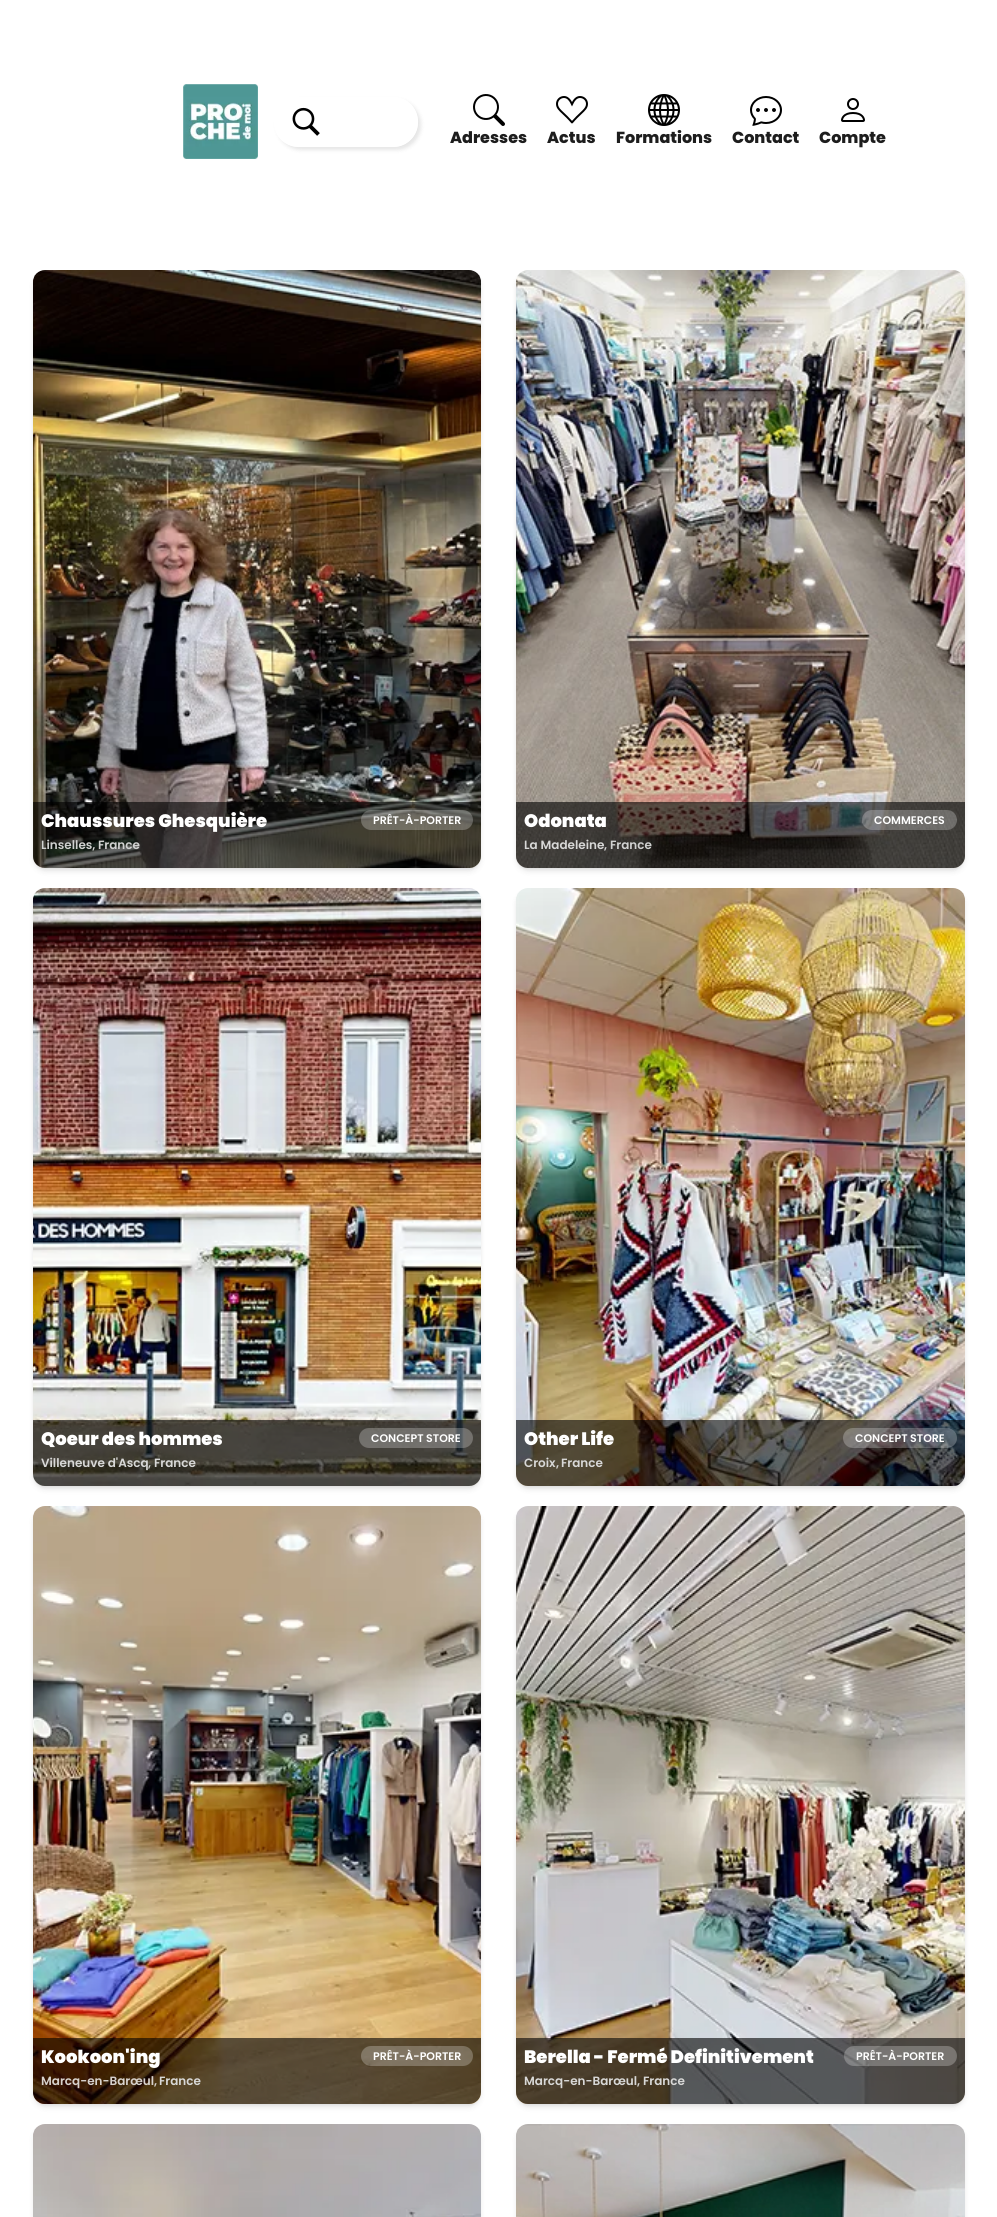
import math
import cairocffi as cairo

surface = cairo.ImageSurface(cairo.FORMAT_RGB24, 997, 2217)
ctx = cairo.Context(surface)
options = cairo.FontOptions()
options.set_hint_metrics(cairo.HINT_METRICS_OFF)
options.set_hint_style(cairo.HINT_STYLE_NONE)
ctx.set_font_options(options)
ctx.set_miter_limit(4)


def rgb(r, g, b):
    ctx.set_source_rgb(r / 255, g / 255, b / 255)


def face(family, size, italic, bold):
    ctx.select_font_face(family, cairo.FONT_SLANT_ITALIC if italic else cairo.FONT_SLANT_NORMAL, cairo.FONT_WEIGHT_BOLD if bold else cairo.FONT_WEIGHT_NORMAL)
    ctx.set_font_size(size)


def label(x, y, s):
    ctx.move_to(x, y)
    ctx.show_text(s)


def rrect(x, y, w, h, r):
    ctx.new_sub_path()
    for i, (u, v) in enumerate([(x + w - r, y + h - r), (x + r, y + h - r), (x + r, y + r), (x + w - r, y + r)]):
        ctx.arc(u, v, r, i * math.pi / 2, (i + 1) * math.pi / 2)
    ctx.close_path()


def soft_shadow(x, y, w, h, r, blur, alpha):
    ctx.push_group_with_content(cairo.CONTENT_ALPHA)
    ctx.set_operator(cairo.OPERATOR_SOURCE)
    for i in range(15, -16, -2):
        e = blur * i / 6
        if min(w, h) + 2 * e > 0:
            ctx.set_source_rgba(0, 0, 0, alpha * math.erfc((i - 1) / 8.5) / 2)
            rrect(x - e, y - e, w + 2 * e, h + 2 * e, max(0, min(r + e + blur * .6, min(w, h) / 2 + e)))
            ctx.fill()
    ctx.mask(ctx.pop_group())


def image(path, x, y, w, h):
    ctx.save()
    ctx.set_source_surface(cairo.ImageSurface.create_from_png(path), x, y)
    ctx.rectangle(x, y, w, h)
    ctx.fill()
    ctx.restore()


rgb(255, 255, 255)
ctx.paint()
image('image0.png', 183, 84, 75, 75)
ctx.save()
ctx.set_fill_rule(cairo.FILL_RULE_EVEN_ODD)
ctx.new_path()
ctx.move_to(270, 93)
ctx.line_to(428, 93)
ctx.line_to(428, 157)
ctx.line_to(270, 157)
ctx.close_path()
ctx.move_to(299, 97)
ctx.line_to(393, 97)
ctx.curve_to(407, 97, 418, 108, 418, 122)
ctx.curve_to(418, 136, 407, 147, 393, 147)
ctx.line_to(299, 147)
ctx.curve_to(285, 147, 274, 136, 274, 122)
ctx.curve_to(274, 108, 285, 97, 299, 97)
ctx.close_path()
ctx.clip()
rgb(0, 0, 0)
soft_shadow(277, 100, 144, 50, 25, 2, 0.1)
ctx.restore()
ctx.set_source_rgba(1, 1, 1, 0.8)
rrect(274, 97, 144, 50, 25)
ctx.fill()
image('image1.png', 292, 107, 28, 29)
image('image2.png', 473, 94, 32, 32)
face('Poppins ExtraBold', 16, 0, 0)
rgb(29, 29, 29)
label(450, 143, 'Adresses')
image('image3.png', 556, 96, 32, 28)
label(547, 143, 'Actus')
image('image4.png', 648, 94, 32, 32)
label(616, 143, 'Formations')
image('image5.png', 750, 96, 32, 30)
label(732, 143, 'Contact')
image('image6.png', 841, 98, 24, 24)
label(819, 143, 'Compte')
rgb(0, 0, 0)
soft_shadow(35, 274, 444, 594, 10, 2, 0.1)
soft_shadow(34, 275, 446, 596, 11, 3, 0.1)
image('image7.png', 33, 270, 448, 598)
ctx.set_source_rgba(0, 0, 0, 0.6)
ctx.new_path()
ctx.move_to(33, 802)
ctx.line_to(481, 802)
ctx.line_to(481, 856)
ctx.curve_to(481, 862.5, 475.5, 868, 469, 868)
ctx.line_to(45, 868)
ctx.curve_to(38.5, 868, 33, 862.5, 33, 856)
ctx.close_path()
ctx.fill()
face('Poppins Black', 18, 0, 0)
rgb(255, 255, 255)
label(41, 827, 'Chaussures Ghesquière')
face('Poppins SemiBold', 12, 0, 0)
rgb(209, 210, 209)
label(41, 849, 'Linselles,')
label(98, 849, 'France')
ctx.set_source_rgba(1, 1, 1, 0.25)
rrect(361, 810, 112, 20, 10)
ctx.fill()
face('Poppins SemiBold', 11, 0, 0)
rgb(255, 255, 255)
label(373, 824, 'PRÊT-À-PORTER')
rgb(0, 0, 0)
soft_shadow(518, 274, 445, 594, 10, 2, 0.1)
soft_shadow(517, 275, 447, 596, 11, 3, 0.1)
image('image8.png', 516, 270, 449, 598)
ctx.set_source_rgba(0, 0, 0, 0.6)
ctx.new_path()
ctx.move_to(516, 802)
ctx.line_to(965, 802)
ctx.line_to(965, 856)
ctx.curve_to(965, 862.5, 959.5, 868, 953, 868)
ctx.line_to(528, 868)
ctx.curve_to(521.5, 868, 516, 862.5, 516, 856)
ctx.close_path()
ctx.fill()
face('Poppins Black', 18, 0, 0)
rgb(255, 255, 255)
label(524, 827, 'Odonata')
face('Poppins SemiBold', 12, 0, 0)
rgb(216, 216, 215)
label(524, 849, 'La Madeleine')
label(604, 849, ',')
rgb(209, 210, 209)
label(610, 849, 'France')
ctx.set_source_rgba(1, 1, 1, 0.25)
rrect(862, 810, 95, 20, 10)
ctx.fill()
face('Poppins SemiBold', 11, 0, 0)
rgb(255, 255, 255)
label(874, 824, 'COMMERCES')
rgb(0, 0, 0)
soft_shadow(35, 892, 444, 594, 10, 2, 0.1)
soft_shadow(34, 893, 446, 596, 11, 3, 0.1)
image('image9.png', 33, 888, 448, 598)
ctx.set_source_rgba(0, 0, 0, 0.6)
ctx.new_path()
ctx.move_to(33, 1420)
ctx.line_to(481, 1420)
ctx.line_to(481, 1474)
ctx.curve_to(481, 1480.5, 475.5, 1486, 469, 1486)
ctx.line_to(45, 1486)
ctx.curve_to(38.5, 1486, 33, 1480.5, 33, 1474)
ctx.close_path()
ctx.fill()
face('Poppins Black', 18, 0, 0)
rgb(255, 255, 255)
label(41, 1445, 'Qoeur des hommes')
face('Poppins SemiBold', 12, 0, 0)
rgb(216, 216, 215)
label(41, 1467, 'Villeneuve d\'Ascq')
rgb(209, 210, 209)
label(148, 1467, ',')
rgb(216, 216, 215)
label(154, 1467, 'France')
ctx.set_source_rgba(1, 1, 1, 0.25)
rrect(359, 1428, 114, 20, 10)
ctx.fill()
face('Poppins SemiBold', 11, 0, 0)
rgb(255, 255, 255)
label(371, 1442, 'CONCEPT STORE')
rgb(0, 0, 0)
soft_shadow(518, 892, 445, 594, 10, 2, 0.1)
soft_shadow(517, 893, 447, 596, 11, 3, 0.1)
image('image10.png', 516, 888, 449, 598)
ctx.set_source_rgba(0, 0, 0, 0.6)
ctx.new_path()
ctx.move_to(516, 1420)
ctx.line_to(965, 1420)
ctx.line_to(965, 1474)
ctx.curve_to(965, 1480.5, 959.5, 1486, 953, 1486)
ctx.line_to(528, 1486)
ctx.curve_to(521.5, 1486, 516, 1480.5, 516, 1474)
ctx.close_path()
ctx.fill()
face('Poppins Black', 18, 0, 0)
rgb(255, 255, 255)
label(524, 1445, 'Other Life')
face('Poppins SemiBold', 12, 0, 0)
rgb(216, 216, 215)
label(524, 1467, 'Croix')
label(556, 1467, ',')
label(561, 1467, 'France')
ctx.set_source_rgba(1, 1, 1, 0.25)
rrect(843, 1428, 114, 20, 10)
ctx.fill()
face('Poppins SemiBold', 11, 0, 0)
rgb(255, 255, 255)
label(855, 1442, 'CONCEPT STORE')
rgb(0, 0, 0)
soft_shadow(35, 1510, 444, 594, 10, 2, 0.1)
soft_shadow(34, 1511, 446, 596, 11, 3, 0.1)
image('image11.png', 33, 1506, 448, 598)
ctx.set_source_rgba(0, 0, 0, 0.6)
ctx.new_path()
ctx.move_to(33, 2038)
ctx.line_to(481, 2038)
ctx.line_to(481, 2092)
ctx.curve_to(481, 2098.5, 475.5, 2104, 469, 2104)
ctx.line_to(45, 2104)
ctx.curve_to(38.5, 2104, 33, 2098.5, 33, 2092)
ctx.close_path()
ctx.fill()
face('Poppins Black', 18, 0, 0)
rgb(255, 255, 255)
label(41, 2063, 'Kookoon\'ing')
face('Poppins SemiBold', 12, 0, 0)
rgb(215, 210, 205)
label(41, 2085, 'Marcq-en-Barœul')
label(154, 2085, ',')
rgb(216, 216, 215)
label(159, 2085, 'France')
ctx.set_source_rgba(1, 1, 1, 0.25)
rrect(361, 2046, 112, 20, 10)
ctx.fill()
face('Poppins SemiBold', 11, 0, 0)
rgb(255, 255, 255)
label(373, 2060, 'PRÊT-À-PORTER')
rgb(0, 0, 0)
soft_shadow(518, 1510, 445, 594, 10, 2, 0.1)
soft_shadow(517, 1511, 447, 596, 11, 3, 0.1)
image('image12.png', 516, 1506, 449, 598)
ctx.set_source_rgba(0, 0, 0, 0.6)
ctx.new_path()
ctx.move_to(516, 2038)
ctx.line_to(965, 2038)
ctx.line_to(965, 2092)
ctx.curve_to(965, 2098.5, 959.5, 2104, 953, 2104)
ctx.line_to(528, 2104)
ctx.curve_to(521.5, 2104, 516, 2098.5, 516, 2092)
ctx.close_path()
ctx.fill()
face('Poppins Black', 18, 0, 0)
rgb(255, 255, 255)
label(524, 2063, 'Berella - Fermé Definitivement')
face('Poppins SemiBold', 12, 0, 0)
rgb(216, 216, 215)
label(524, 2085, 'Marcq-en-Barœul')
label(637, 2085, ',')
label(643, 2085, 'France')
ctx.set_source_rgba(1, 1, 1, 0.25)
rrect(844, 2046, 113, 20, 10)
ctx.fill()
face('Poppins SemiBold', 11, 0, 0)
rgb(255, 255, 255)
label(856, 2060, 'PRÊT-À-PORTER')
rgb(0, 0, 0)
soft_shadow(34, 2129, 446, 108, 11, 3, 0.1)
image('image13.png', 33, 2124, 448, 93)
soft_shadow(517, 2129, 447, 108, 11, 3, 0.1)
image('image14.png', 516, 2124, 449, 93)
surface.write_to_png('render.png')
